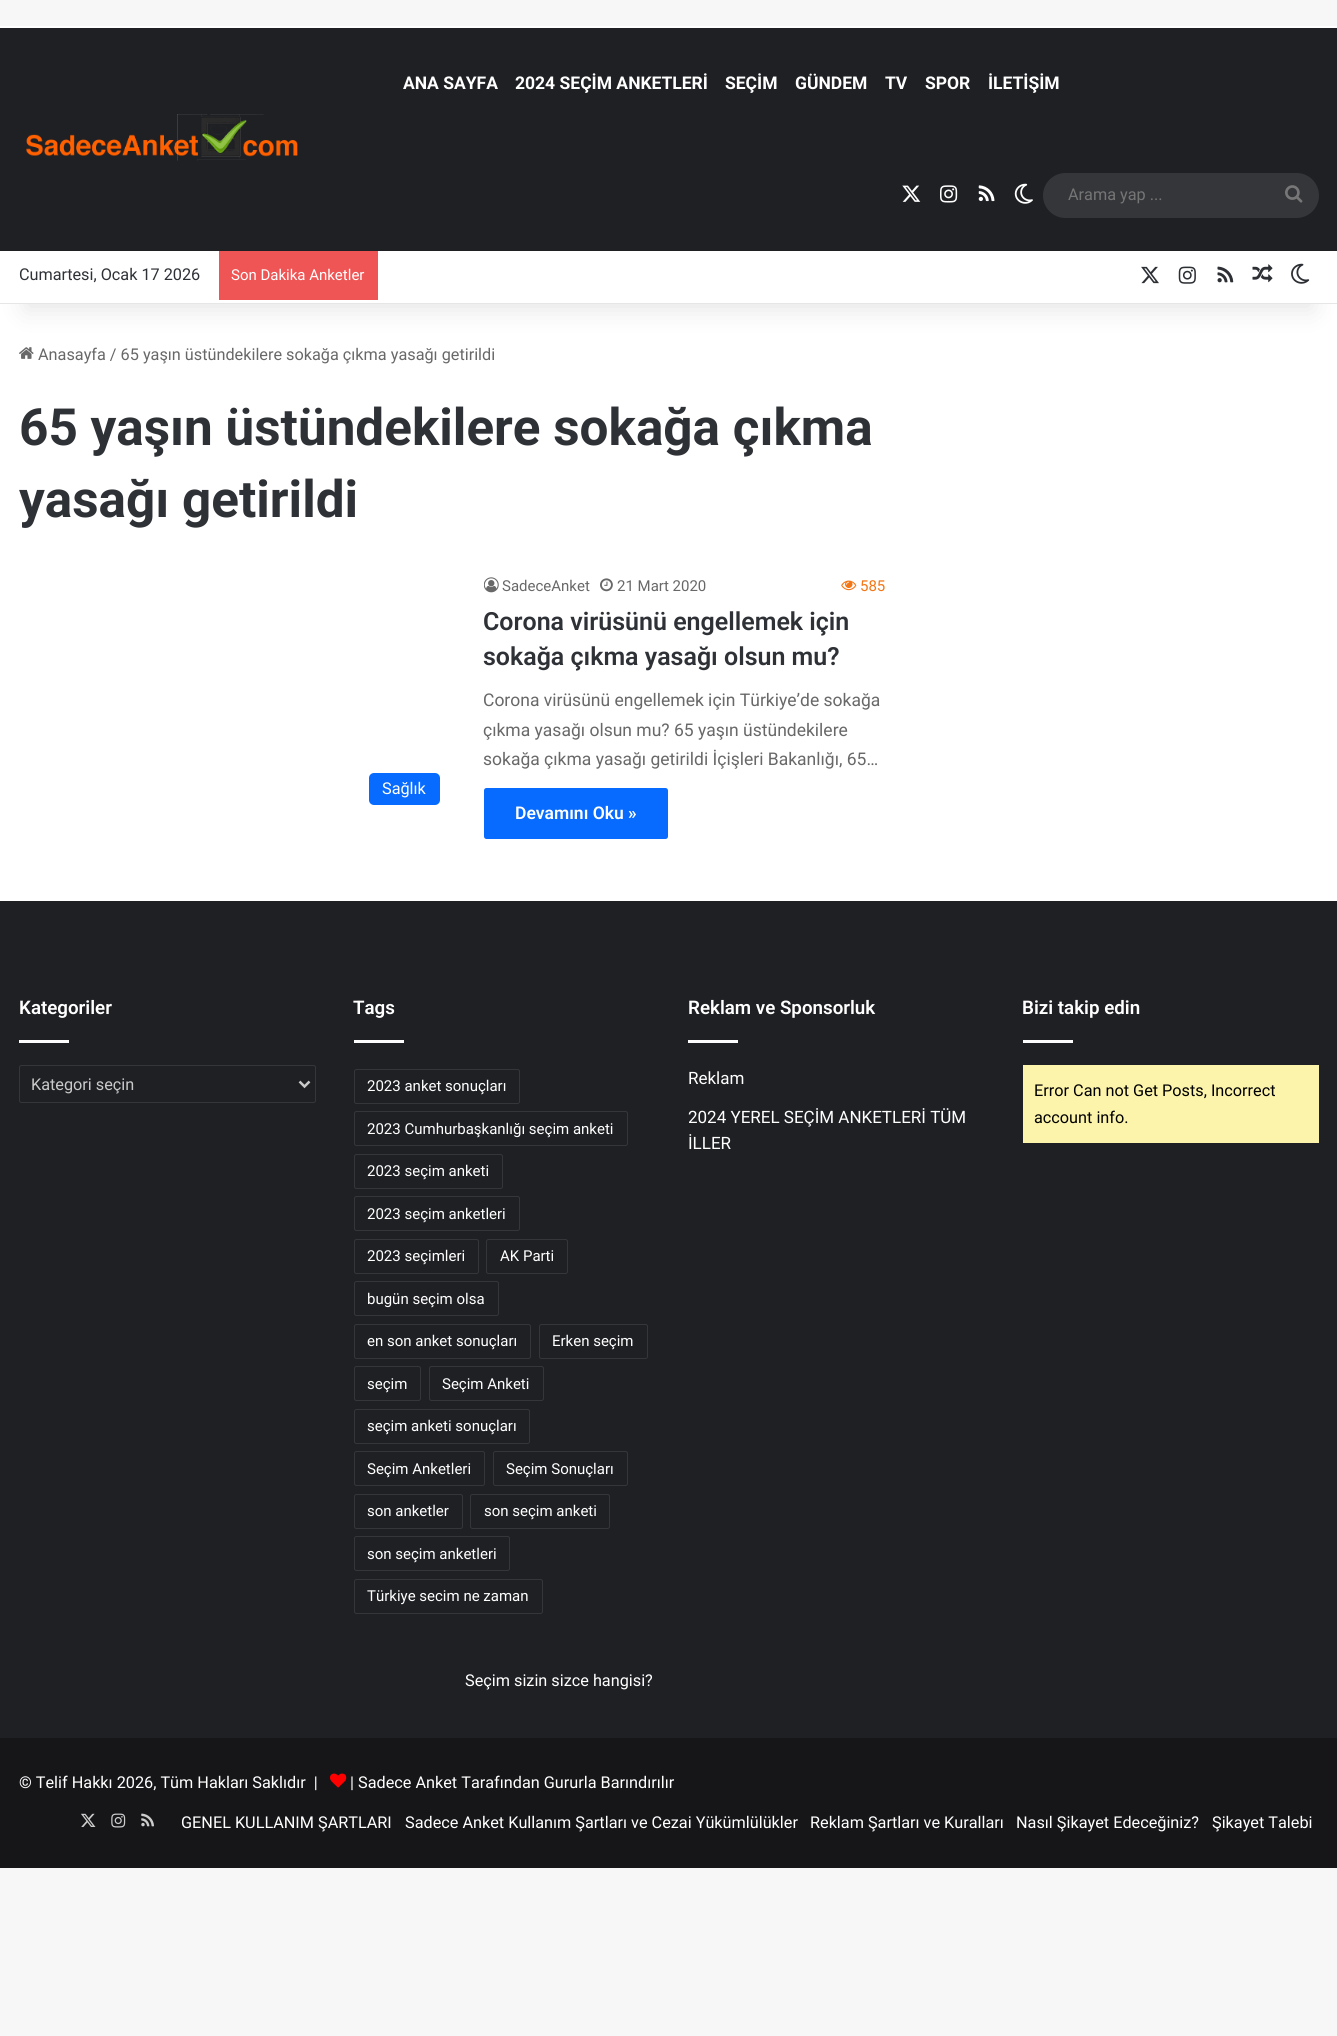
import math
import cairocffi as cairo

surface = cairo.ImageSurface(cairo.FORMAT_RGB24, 1337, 2036)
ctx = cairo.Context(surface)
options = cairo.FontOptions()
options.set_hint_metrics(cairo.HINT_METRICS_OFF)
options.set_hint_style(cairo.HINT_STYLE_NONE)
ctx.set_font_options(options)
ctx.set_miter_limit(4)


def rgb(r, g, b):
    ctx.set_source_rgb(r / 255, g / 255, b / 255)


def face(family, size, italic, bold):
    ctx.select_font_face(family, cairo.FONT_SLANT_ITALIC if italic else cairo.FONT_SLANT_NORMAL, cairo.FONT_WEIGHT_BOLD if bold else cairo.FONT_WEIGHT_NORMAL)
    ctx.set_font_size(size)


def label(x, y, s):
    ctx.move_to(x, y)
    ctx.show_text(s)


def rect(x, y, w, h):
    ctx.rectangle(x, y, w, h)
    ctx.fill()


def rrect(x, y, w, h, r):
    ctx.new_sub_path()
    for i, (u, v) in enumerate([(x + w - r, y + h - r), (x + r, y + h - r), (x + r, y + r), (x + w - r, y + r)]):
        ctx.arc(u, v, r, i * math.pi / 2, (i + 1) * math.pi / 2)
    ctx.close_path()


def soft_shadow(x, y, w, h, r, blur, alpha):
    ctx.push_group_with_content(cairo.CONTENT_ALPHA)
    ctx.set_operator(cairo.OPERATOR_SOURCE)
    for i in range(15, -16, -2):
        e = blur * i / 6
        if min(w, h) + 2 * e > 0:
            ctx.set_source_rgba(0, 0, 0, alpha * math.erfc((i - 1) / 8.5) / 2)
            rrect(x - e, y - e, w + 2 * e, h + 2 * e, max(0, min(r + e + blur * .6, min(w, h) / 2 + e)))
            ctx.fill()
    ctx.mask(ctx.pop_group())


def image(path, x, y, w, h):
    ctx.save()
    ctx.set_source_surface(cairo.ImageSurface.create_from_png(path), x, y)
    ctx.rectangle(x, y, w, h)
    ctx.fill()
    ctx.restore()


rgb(247, 247, 247)
ctx.paint()
rgb(255, 255, 255)
rect(0, 304, 1337, 597)
image('image11.png', 19, 347, 15, 12)
rgb(0, 0, 0)
soft_shadow(25, 83, 1288, 227, 0, 12.5, 0.1)
rgb(255, 255, 255)
rect(0, 26, 1337, 277)
rgb(31, 32, 36)
rect(0, 28, 1337, 223)
image('image0.png', 26, 114, 272, 47)
face('Roboto', 17.5, 0, 1)
rgb(255, 255, 255)
label(403, 89, 'ANA SAYFA')
label(515, 89, '2024 SEÇİM ANKETLERİ')
label(725, 89, 'SEÇİM')
label(795, 89, 'GÜNDEM')
label(885, 89, 'TV')
label(925, 89, 'SPOR')
label(988, 89, 'İLETİŞİM')
image('image1.png', 902, 185, 19, 17)
image('image2.png', 940, 185, 18, 18)
image('image3.png', 978, 185, 17, 17)
image('image4.png', 1014, 183, 19, 21)
rgb(53, 54, 58)
rrect(1043, 173, 276, 45, 22.5)
ctx.fill()
face('Roboto', 16.25, 0, 0)
rgb(117, 117, 117)
label(1068, 200, 'Arama yap ...')
image('image5.png', 1285, 185, 18, 18)
rgb(230, 230, 230)
rect(0, 303, 1337, 1)
rgb(46, 49, 54)
label(19, 280, 'Cumartesi, Ocak 17 2026')
rgb(240, 85, 85)
rect(219, 251, 159, 49)
face('Roboto', 15, 0, 0)
rgb(255, 255, 255)
label(231, 280, 'Son Dakika Anketler')
image('image6.png', 1141, 266, 18, 18)
image('image7.png', 1178, 266, 18, 18)
image('image8.png', 1217, 266, 17, 17)
image('image9.png', 1252, 264, 21, 19)
image('image10.png', 1291, 263, 19, 21)
face('Roboto', 16.25, 0, 0)
rgb(104, 104, 104)
label(38, 360, 'Anasayfa / 65 yaşın üstündekilere sokağa çıkma yasağı getirildi')
face('Roboto', 51.25, 0, 1)
rgb(46, 49, 54)
label(19, 445, '65 yaşın üstündekilere sokağa çıkma')
label(19, 517, 'yasağı getirildi')
rgb(8, 107, 255)
rrect(369, 773, 71, 32, 5)
ctx.fill()
face('Roboto', 16.25, 0, 0)
rgb(255, 255, 255)
label(382, 794, 'Sağlık')
image('image12.png', 484, 577, 15, 16)
face('Roboto', 15, 0, 0)
rgb(104, 104, 104)
label(502, 591, 'SadeceAnket')
image('image13.png', 600, 578, 13, 14)
label(617, 591, '21 Mart 2020')
image('image14.png', 841, 580, 16, 11)
rgb(244, 118, 20)
label(860, 591, '585')
face('Roboto SemiBold', 25, 0, 0)
rgb(46, 49, 54)
label(483, 630, 'Corona virüsünü engellemek için')
label(483, 665, 'sokağa çıkma yasağı olsun mu?')
face('Roboto', 17.5, 0, 0)
rgb(104, 104, 104)
label(483, 706, 'Corona virüsünü engellemek için Türkiye’de sokağa')
label(483, 736, 'çıkma yasağı olsun mu? 65 yaşın üstündekilere')
label(483, 765, 'sokağa çıkma yasağı getirildi İçişleri Bakanlığı, 65…')
rgb(8, 107, 255)
rrect(484, 788, 184, 51, 2.5)
ctx.fill()
face('Roboto SemiBold', 17.5, 0, 0)
rgb(255, 255, 255)
label(515, 819, 'Devamını Oku »')
rgb(31, 32, 36)
rect(0, 901, 1337, 837)
face('Roboto SemiBold', 18.75, 0, 0)
rgb(255, 255, 255)
label(19, 1014, 'Kategoriler')
rgb(253, 253, 253)
rect(19, 1040, 50, 3)
rrect(19.5, 1065.5, 296, 37, 2)
rgb(53, 54, 58)
ctx.set_line_width(1)
ctx.stroke()
ctx.new_path()
ctx.move_to(299.5, 1081.5)
ctx.line_to(304.5, 1086.5)
ctx.line_to(309.5, 1081.5)
rgb(202, 202, 202)
ctx.set_line_width(2.5)
ctx.stroke()
face('Roboto', 16.25, 0, 0)
label(31, 1090, 'Kategori seçin')
face('Roboto SemiBold', 18.75, 0, 0)
rgb(255, 255, 255)
label(353, 1014, 'Tags')
rgb(253, 253, 253)
rect(354, 1040, 50, 3)
rrect(354.5, 1069.5, 165, 34, 2)
rgb(53, 54, 58)
ctx.set_line_width(1)
ctx.stroke()
face('Roboto', 15, 0, 0)
rgb(255, 255, 255)
label(367, 1091, '2023 anket sonuçları')
rrect(354.5, 1111.5, 273, 34, 2)
rgb(53, 54, 58)
ctx.stroke()
rgb(255, 255, 255)
label(367, 1134, '2023 Cumhurbaşkanlığı seçim anketi')
rrect(354.5, 1154.5, 148, 34, 2)
rgb(53, 54, 58)
ctx.stroke()
rgb(255, 255, 255)
label(367, 1176, '2023 seçim anketi')
rrect(354.5, 1196.5, 165, 34, 2)
rgb(53, 54, 58)
ctx.stroke()
rgb(255, 255, 255)
label(367, 1219, '2023 seçim anketleri')
rrect(354.5, 1239.5, 124, 34, 2)
rgb(53, 54, 58)
ctx.stroke()
rgb(255, 255, 255)
label(367, 1261, '2023 seçimleri')
rrect(486.5, 1239.5, 81, 34, 2)
rgb(53, 54, 58)
ctx.stroke()
rgb(255, 255, 255)
label(500, 1261, 'AK Parti')
rrect(354.5, 1281.5, 144, 34, 2)
rgb(53, 54, 58)
ctx.stroke()
rgb(255, 255, 255)
label(367, 1304, 'bugün seçim olsa')
rrect(354.5, 1324.5, 176, 34, 2)
rgb(53, 54, 58)
ctx.stroke()
rgb(255, 255, 255)
label(367, 1346, 'en son anket sonuçları')
rrect(539.5, 1324.5, 108, 34, 2)
rgb(53, 54, 58)
ctx.stroke()
rgb(255, 255, 255)
label(552, 1346, 'Erken seçim')
rrect(354.5, 1366.5, 66, 34, 2)
rgb(53, 54, 58)
ctx.stroke()
rgb(255, 255, 255)
label(367, 1389, 'seçim')
rrect(429.5, 1366.5, 114, 34, 2)
rgb(53, 54, 58)
ctx.stroke()
rgb(255, 255, 255)
label(442, 1389, 'Seçim Anketi')
rrect(354.5, 1409.5, 175, 34, 2)
rgb(53, 54, 58)
ctx.stroke()
rgb(255, 255, 255)
label(367, 1431, 'seçim anketi sonuçları')
rrect(354.5, 1451.5, 130, 34, 2)
rgb(53, 54, 58)
ctx.stroke()
rgb(255, 255, 255)
label(367, 1474, 'Seçim Anketleri')
rrect(493.5, 1451.5, 134, 34, 2)
rgb(53, 54, 58)
ctx.stroke()
rgb(255, 255, 255)
label(506, 1474, 'Seçim Sonuçları')
rrect(354.5, 1494.5, 108, 34, 2)
rgb(53, 54, 58)
ctx.stroke()
rgb(255, 255, 255)
label(367, 1516, 'son anketler')
rrect(470.5, 1494.5, 139, 34, 2)
rgb(53, 54, 58)
ctx.stroke()
rgb(255, 255, 255)
label(484, 1516, 'son seçim anketi')
rrect(354.5, 1536.5, 155, 34, 2)
rgb(53, 54, 58)
ctx.stroke()
rgb(255, 255, 255)
label(367, 1559, 'son seçim anketleri')
rrect(354.5, 1579.5, 188, 34, 2)
rgb(53, 54, 58)
ctx.stroke()
rgb(255, 255, 255)
label(367, 1601, 'Türkiye secim ne zaman')
face('Roboto SemiBold', 18.75, 0, 0)
label(688, 1014, 'Reklam ve Sponsorluk')
rgb(253, 253, 253)
rect(688, 1040, 50, 3)
face('Roboto', 17, 0, 0)
rgb(255, 255, 255)
label(688, 1084, 'Reklam')
label(688, 1123, '2024 YEREL SEÇİM ANKETLERİ TÜM')
label(688, 1149, 'İLLER')
face('Roboto SemiBold', 18.75, 0, 0)
label(1022, 1014, 'Bizi takip edin')
rgb(253, 253, 253)
rect(1023, 1040, 50, 3)
rgb(253, 244, 171)
rect(1023, 1065, 296, 78)
face('Roboto', 16.25, 0, 0)
rgb(0, 0, 0)
label(1034, 1096, 'Error Can not Get Posts, Incorrect')
label(1034, 1123, 'account info.')
rgb(255, 255, 255)
label(465, 1686, 'Seçim sizin sizce hangisi?')
rgb(22, 22, 25)
rect(0, 1738, 1337, 130)
rgb(255, 255, 255)
label(19, 1788, '© Telif Hakkı 2026, Tüm Hakları Saklıdır  |')
image('image15.png', 330, 1773, 17, 15)
label(350, 1788, '| Sadece Anket Tarafından Gururla Barındırılır')
image('image16.png', 81, 1813, 15, 14)
image('image17.png', 111, 1813, 15, 15)
image('image18.png', 141, 1813, 13, 14)
label(181, 1828, 'GENEL KULLANIM ŞARTLARI')
label(405, 1828, 'Sadece Anket Kullanım Şartları ve Cezai Yükümlülükler')
label(810, 1828, 'Reklam Şartları ve Kuralları')
label(1016, 1828, 'Nasıl Şikayet Edeceğiniz?')
label(1212, 1828, 'Şikayet Talebi')
surface.write_to_png('render.png')
